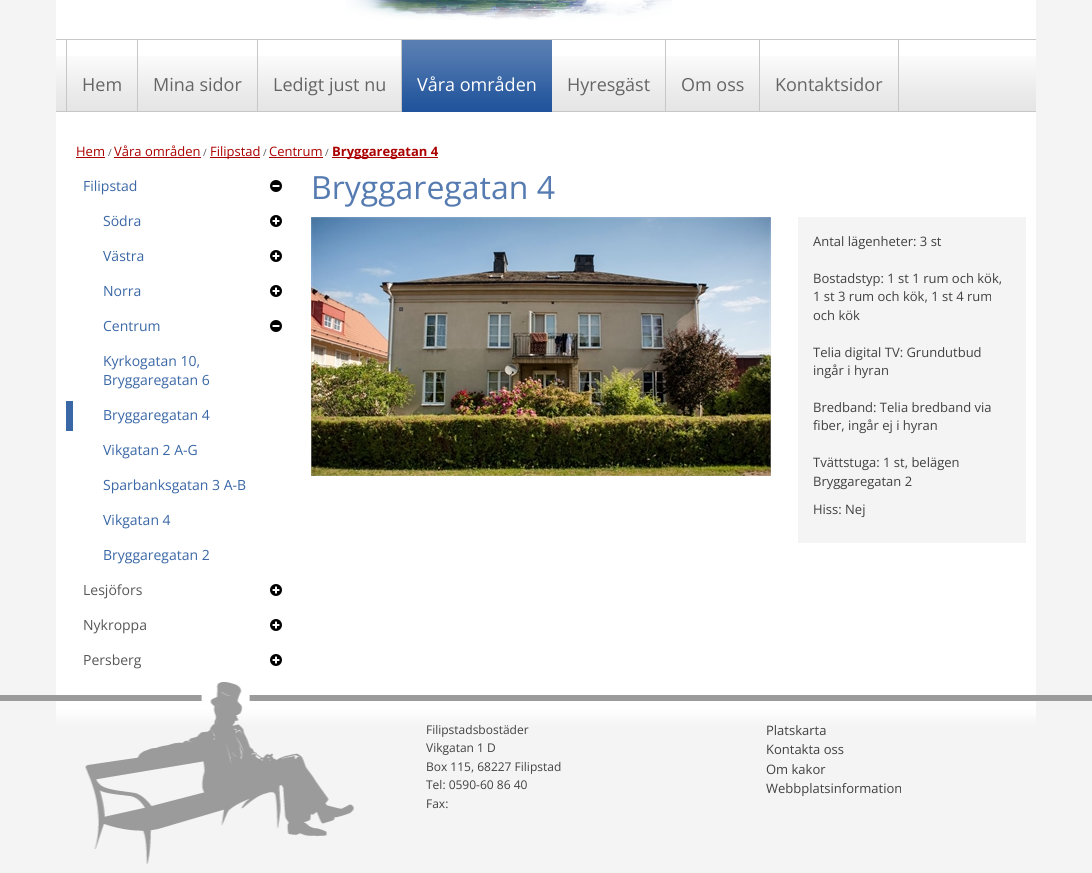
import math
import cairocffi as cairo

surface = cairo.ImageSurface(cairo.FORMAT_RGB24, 1092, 873)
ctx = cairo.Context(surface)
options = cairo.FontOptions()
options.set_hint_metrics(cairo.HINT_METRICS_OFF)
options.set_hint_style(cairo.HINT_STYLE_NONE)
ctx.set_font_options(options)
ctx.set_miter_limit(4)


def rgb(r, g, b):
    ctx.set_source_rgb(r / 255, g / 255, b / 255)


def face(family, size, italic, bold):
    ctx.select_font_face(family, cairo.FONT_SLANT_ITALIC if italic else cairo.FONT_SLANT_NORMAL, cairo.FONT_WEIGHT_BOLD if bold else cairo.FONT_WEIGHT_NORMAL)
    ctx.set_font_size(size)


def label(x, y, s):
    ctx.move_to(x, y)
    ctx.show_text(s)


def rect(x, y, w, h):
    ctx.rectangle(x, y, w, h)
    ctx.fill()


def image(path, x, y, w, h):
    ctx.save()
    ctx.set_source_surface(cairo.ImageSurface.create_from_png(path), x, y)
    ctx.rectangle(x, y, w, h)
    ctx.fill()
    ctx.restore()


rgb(244, 244, 244)
ctx.paint()
rgb(155, 155, 155)
rect(0, 695, 1092, 6)
rgb(255, 255, 255)
rect(56, 0, 980, 700)
image('image0.png', 346, 0, 326, 20)
image('image1.png', 56, 56, 980, 56)
rgb(199, 199, 199)
rect(56, 39, 980, 1)
rect(137, 40, 1, 72)
rect(66, 40, 1, 72)
face('Open Sans', 18, 0, 0)
rgb(101, 101, 101)
label(82, 91, 'Hem')
rgb(199, 199, 199)
rect(257, 40, 1, 72)
rgb(101, 101, 101)
label(153, 91, 'Mina sidor')
rgb(199, 199, 199)
rect(401, 40, 1, 72)
rgb(101, 101, 101)
label(273, 91, 'Ledigt just nu')
image('image2.png', 402, 40, 150, 72)
rgb(255, 255, 255)
label(417, 91, 'Våra områden')
rgb(199, 199, 199)
rect(665, 40, 1, 72)
rgb(101, 101, 101)
label(567, 91, 'Hyresgäst')
rgb(199, 199, 199)
rect(759, 40, 1, 72)
rgb(101, 101, 101)
label(681, 91, 'Om oss')
rgb(199, 199, 199)
rect(898, 40, 1, 72)
rgb(101, 101, 101)
label(775, 91, 'Kontaktsidor')
face('Open Sans', 13, 0, 0)
rgb(171, 0, 0)
label(76, 156, 'Hem')
rect(76, 157, 29, 1)
face('Open Sans', 10, 0, 0)
rgb(87, 87, 87)
label(108, 156, '/')
rgb(171, 0, 0)
rect(114, 157, 87, 1)
face('Open Sans', 13, 0, 0)
label(114, 156, 'Våra områden')
face('Open Sans', 10, 0, 0)
rgb(87, 87, 87)
label(203, 156, '/')
rgb(171, 0, 0)
rect(210, 157, 50, 1)
face('Open Sans', 13, 0, 0)
label(210, 156, 'Filipstad')
face('Open Sans', 10, 0, 0)
rgb(87, 87, 87)
label(263, 156, '/')
face('Open Sans', 13, 0, 0)
rgb(171, 0, 0)
label(269, 156, 'Centrum')
rect(269, 157, 54, 1)
face('Open Sans', 10, 0, 0)
rgb(87, 87, 87)
label(325, 156, '/')
rgb(171, 0, 0)
rect(332, 157, 106, 1)
face('Open Sans', 13, 0, 1)
label(332, 156, 'Bryggaregatan 4')
face('Open Sans', 14, 0, 0)
rgb(58, 103, 166)
label(83, 191, 'Filipstad')
image('image3.png', 270, 180, 12, 12)
label(103, 226, 'Södra')
image('image4.png', 270, 215, 12, 12)
label(103, 261, 'Västra')
image('image4.png', 270, 250, 12, 12)
label(103, 296, 'Norra')
image('image4.png', 270, 285, 12, 12)
label(103, 331, 'Centrum')
image('image3.png', 270, 320, 12, 12)
label(103, 366, 'Kyrkogatan 10,')
label(103, 385, 'Bryggaregatan 6')
rect(66, 401, 7, 30)
label(103, 420, 'Bryggaregatan 4')
label(103, 455, 'Vikgatan 2 A-G')
label(103, 490, 'Sparbanksgatan 3 A-B')
label(103, 525, 'Vikgatan 4')
label(103, 560, 'Bryggaregatan 2')
rgb(87, 87, 87)
label(83, 595, 'Lesjöfors')
image('image4.png', 270, 584, 12, 12)
label(83, 630, 'Nykroppa')
image('image4.png', 270, 619, 12, 12)
label(83, 665, 'Persberg')
image('image4.png', 270, 654, 12, 12)
face('Open Sans', 32, 0, 0)
rgb(85, 123, 177)
label(311, 199, 'Bryggaregatan 4')
image('image5.png', 311, 217, 460, 259)
rgb(244, 244, 244)
rect(798, 217, 228, 326)
face('Open Sans', 13, 0, 0)
rgb(65, 65, 65)
label(813, 246, 'Antal lägenheter: 3 st')
label(813, 283, 'Bostadstyp: 1 st 1 rum och kök,')
label(813, 301, '1 st 3 rum och kök, 1 st 4 rum')
label(813, 320, 'och kök')
label(813, 357, 'Telia digital TV: Grundutbud')
label(813, 375, 'ingår i hyran')
label(813, 412, 'Bredband: Telia bredband via')
label(813, 430, 'fiber, ingår ej i hyran')
label(813, 467, 'Tvättstuga: 1 st, belägen')
label(813, 486, 'Bryggaregatan 2')
label(813, 514, 'Hiss: Nej')
image('image6.png', 56, 682, 980, 191)
face('Open Sans', 12, 0, 0)
label(426, 734, 'Filipstadsbostäder')
label(426, 752, 'Vikgatan 1 D')
label(426, 771, 'Box 115, 68227 Filipstad')
label(426, 789, 'Tel: 0590-60 86 40')
label(426, 808, 'Fax:')
face('Open Sans', 13, 0, 0)
label(766, 735, 'Platskarta')
label(766, 754, 'Kontakta oss')
label(766, 774, 'Om kakor')
label(766, 793, 'Webbplatsinformation')
surface.write_to_png('render.png')
